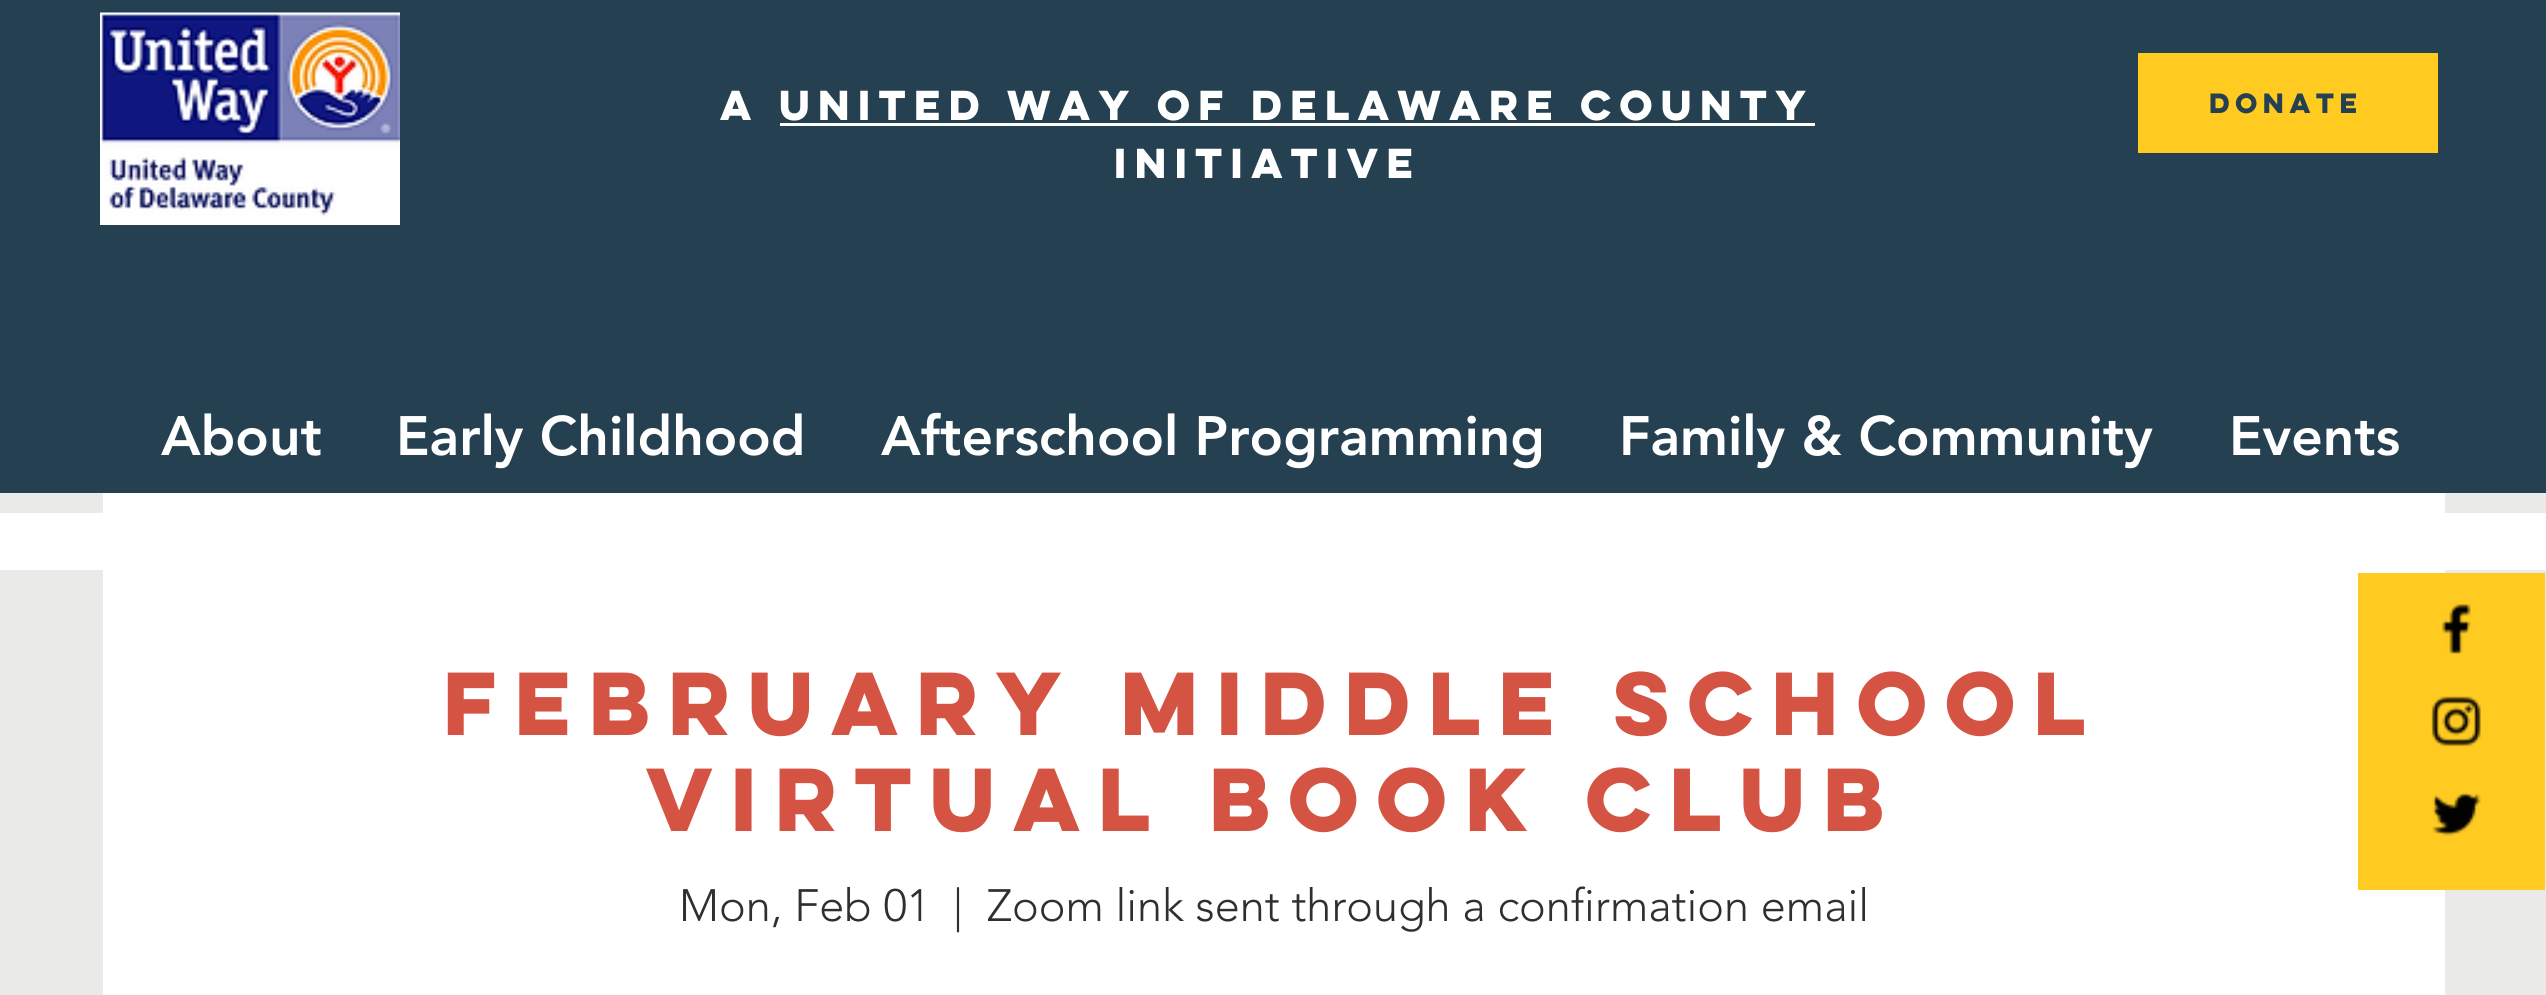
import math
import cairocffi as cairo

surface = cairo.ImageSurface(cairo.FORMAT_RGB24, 2546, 995)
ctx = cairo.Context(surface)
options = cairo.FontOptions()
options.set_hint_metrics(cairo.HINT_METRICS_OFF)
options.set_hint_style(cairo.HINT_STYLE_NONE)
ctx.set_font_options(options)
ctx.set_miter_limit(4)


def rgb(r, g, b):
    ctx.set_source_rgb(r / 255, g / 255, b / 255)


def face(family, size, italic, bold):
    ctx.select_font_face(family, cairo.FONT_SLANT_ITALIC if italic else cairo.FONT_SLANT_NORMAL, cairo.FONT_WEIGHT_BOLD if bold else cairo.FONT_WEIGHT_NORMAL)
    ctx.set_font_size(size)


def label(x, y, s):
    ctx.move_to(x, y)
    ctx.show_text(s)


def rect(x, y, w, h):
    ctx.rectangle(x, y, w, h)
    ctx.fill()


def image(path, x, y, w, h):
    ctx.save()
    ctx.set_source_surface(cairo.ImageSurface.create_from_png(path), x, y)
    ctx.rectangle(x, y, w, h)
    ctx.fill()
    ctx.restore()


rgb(234, 234, 232)
ctx.paint()
rgb(37, 65, 81)
rect(0, 0, 2546, 493)
image('image0.png', 100, 12, 300, 213)
face('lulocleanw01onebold', 37.5, 0, 1)
rgb(255, 255, 255)
label(720, 120, 'A united way of delaware county')
rect(780, 123, 1035, 3)
label(1114, 178, 'Initiative')
rgb(255, 203, 33)
rect(2138, 53, 300, 100)
face('lulocleanw01onebold', 25, 0, 1)
rgb(37, 65, 81)
label(2209, 113, 'DONATE')
face('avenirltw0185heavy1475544 Black', 55, 0, 0)
rgb(255, 255, 255)
label(161, 455, 'About')
label(396, 455, 'Early Childhood')
label(881, 455, 'Afterschool Programming')
label(1619, 455, 'Family & Community')
label(2229, 455, 'Events')
rect(103, 493, 2342, 502)
rect(0, 513, 2546, 57)
face('lulocleanw01onebold', 80, 0, 1)
rgb(213, 83, 66)
label(443, 735, 'February Middle School')
label(646, 831, 'Virtual Book Club')
face('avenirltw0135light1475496 Light', 45, 0, 0)
rgb(47, 47, 46)
label(679, 921, 'Mon, Feb 01')
label(953, 921, '|')
label(987, 921, 'Zoom link sent through a confirmation email')
rgb(255, 203, 33)
rect(2358, 573, 187, 317)
image('image1.png', 2442, 604, 29, 50)
image('image2.png', 2431, 696, 50, 51)
image('image3.png', 2432, 792, 49, 44)
surface.write_to_png('render.png')
